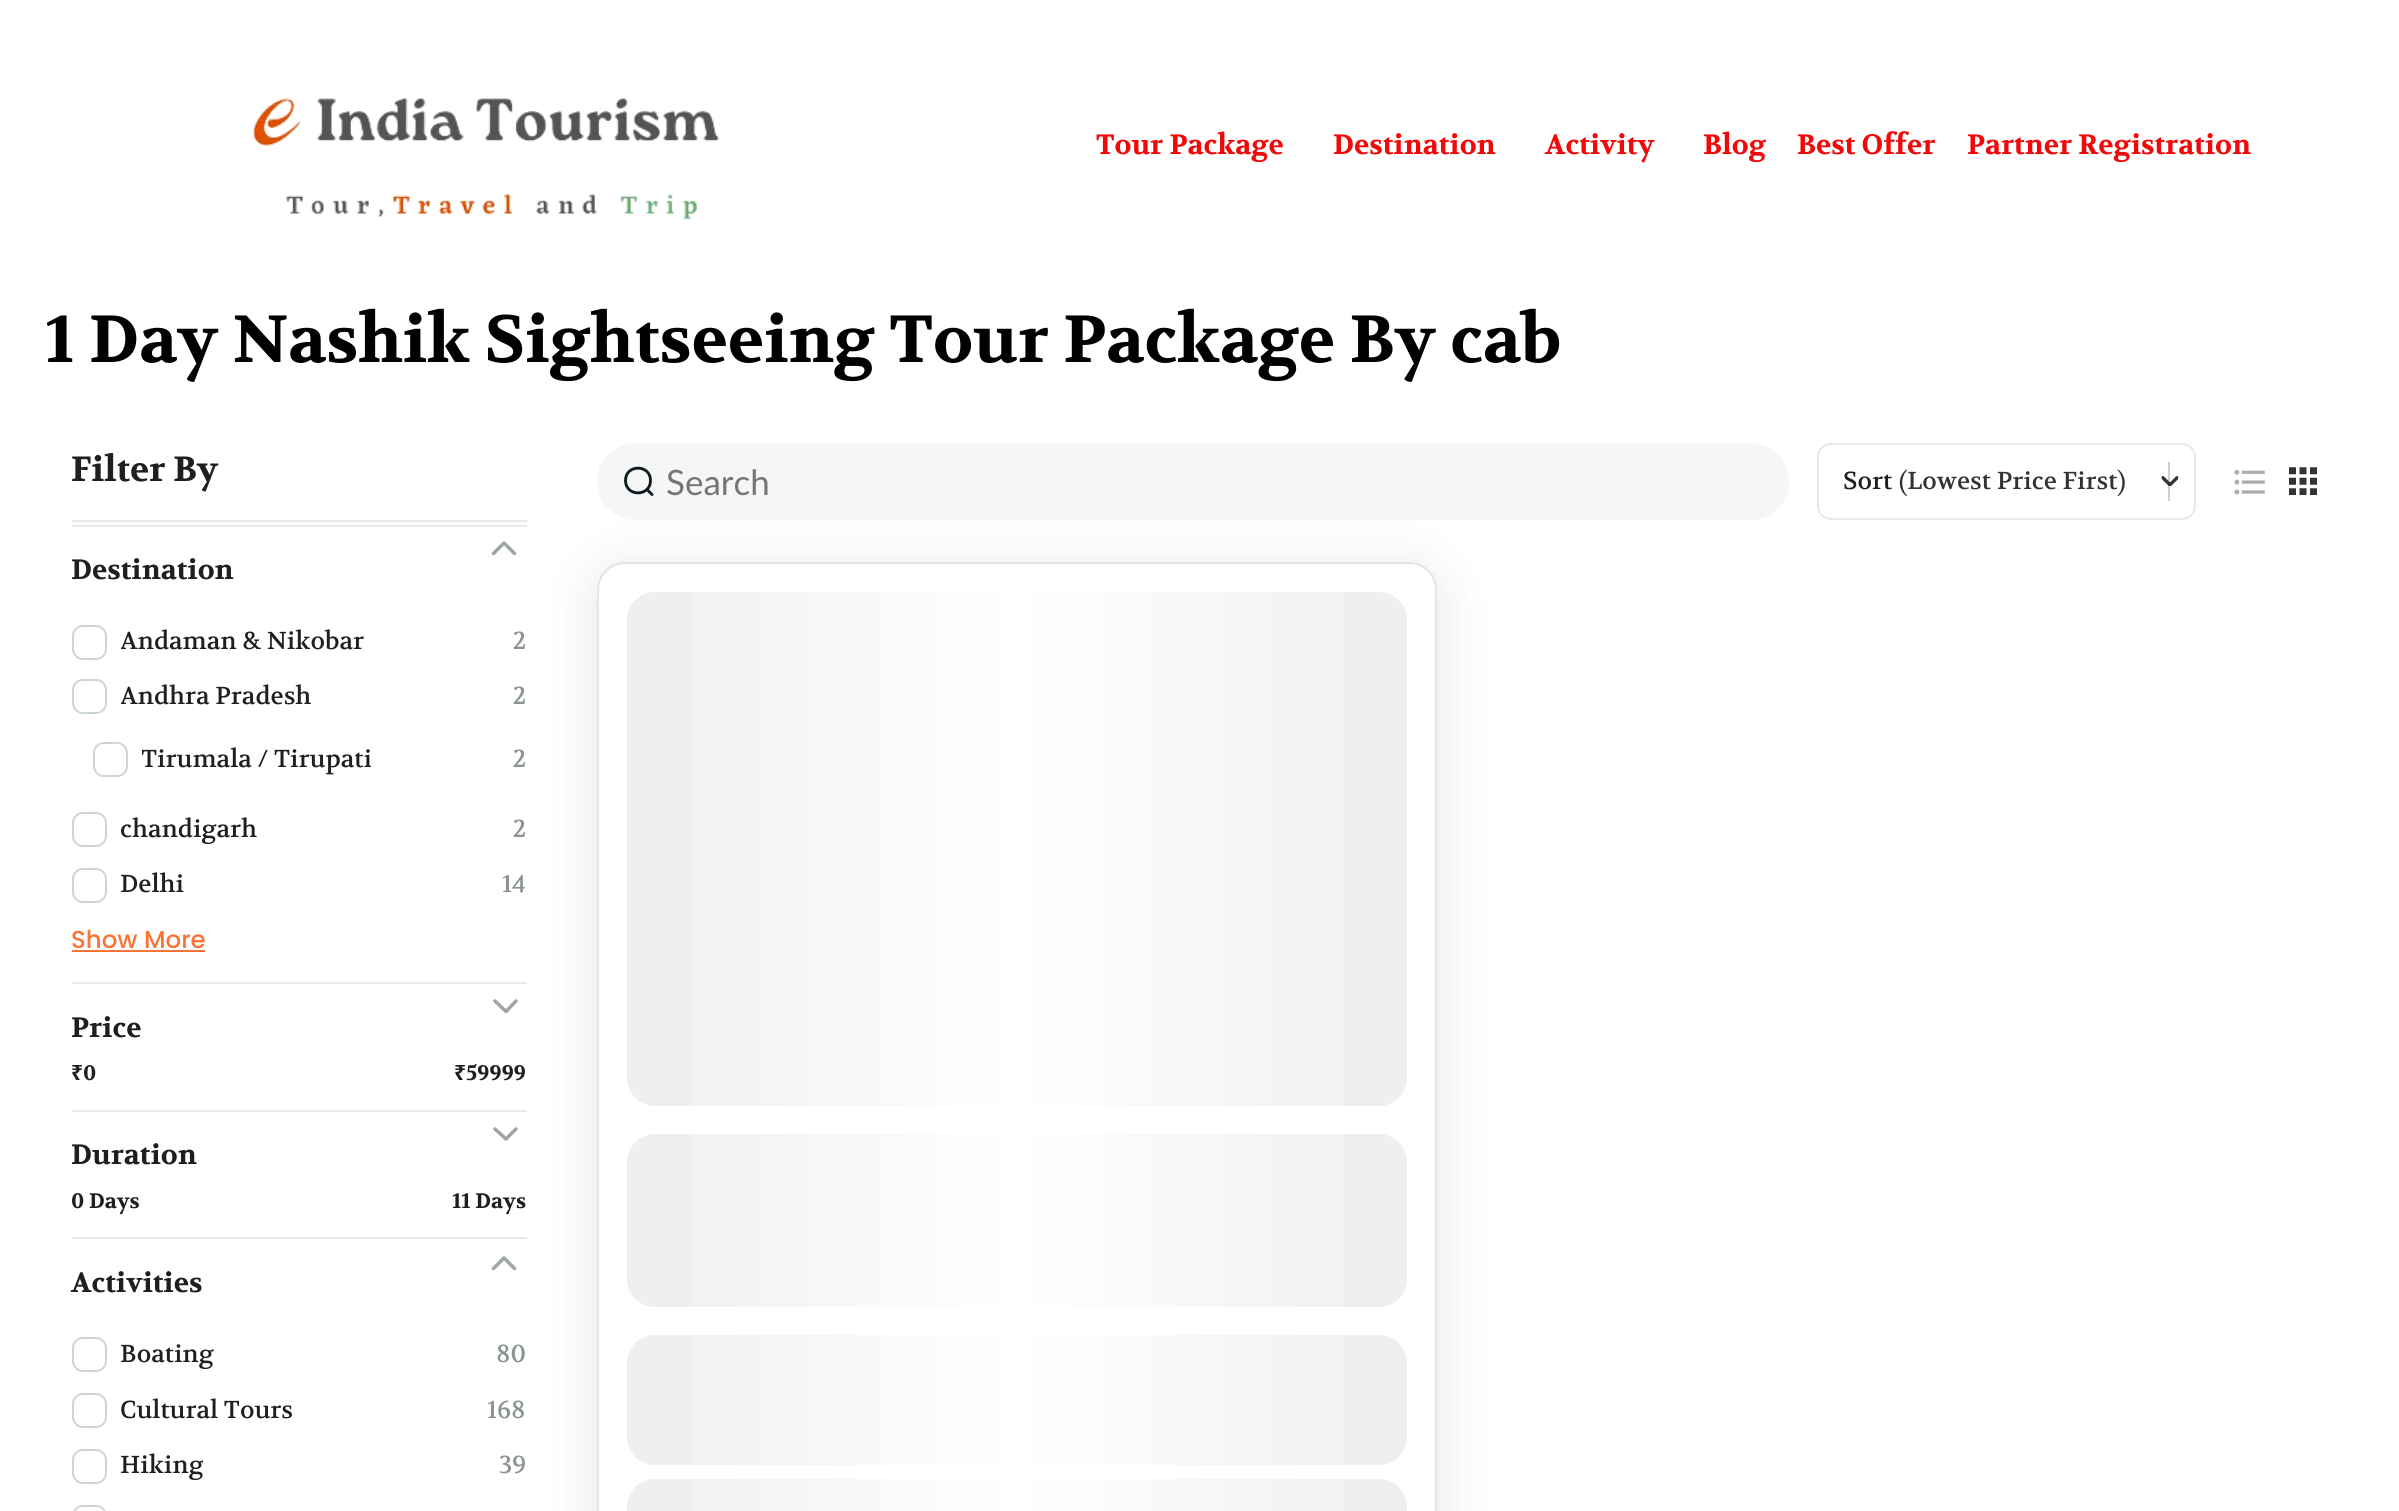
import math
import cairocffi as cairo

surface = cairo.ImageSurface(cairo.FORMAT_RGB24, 2399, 1511)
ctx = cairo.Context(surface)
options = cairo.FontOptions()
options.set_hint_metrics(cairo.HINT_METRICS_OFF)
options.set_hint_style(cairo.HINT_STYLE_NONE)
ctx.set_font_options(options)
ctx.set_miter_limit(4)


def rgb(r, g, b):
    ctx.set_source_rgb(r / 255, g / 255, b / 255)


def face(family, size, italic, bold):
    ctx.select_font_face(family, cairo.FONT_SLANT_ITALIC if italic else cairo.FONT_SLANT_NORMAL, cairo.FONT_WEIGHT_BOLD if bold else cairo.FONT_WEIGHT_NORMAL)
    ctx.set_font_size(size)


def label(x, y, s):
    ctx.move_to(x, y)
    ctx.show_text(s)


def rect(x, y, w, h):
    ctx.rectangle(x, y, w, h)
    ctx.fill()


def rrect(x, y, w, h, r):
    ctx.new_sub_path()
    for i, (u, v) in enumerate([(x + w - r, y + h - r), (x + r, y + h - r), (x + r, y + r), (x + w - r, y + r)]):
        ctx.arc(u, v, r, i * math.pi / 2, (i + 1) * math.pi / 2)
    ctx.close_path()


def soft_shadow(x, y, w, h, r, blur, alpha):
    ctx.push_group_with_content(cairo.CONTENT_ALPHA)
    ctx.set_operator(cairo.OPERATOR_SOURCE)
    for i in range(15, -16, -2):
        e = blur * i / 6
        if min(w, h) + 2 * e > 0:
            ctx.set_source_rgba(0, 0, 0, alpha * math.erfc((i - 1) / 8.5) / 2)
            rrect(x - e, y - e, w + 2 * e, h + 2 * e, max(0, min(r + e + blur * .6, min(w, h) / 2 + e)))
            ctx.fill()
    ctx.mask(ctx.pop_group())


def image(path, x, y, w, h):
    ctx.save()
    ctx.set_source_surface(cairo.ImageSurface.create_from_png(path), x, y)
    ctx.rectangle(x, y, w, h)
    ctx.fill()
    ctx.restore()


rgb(255, 255, 255)
ctx.paint()
image('image0.png', 252, 97, 467, 123)
face('Volkhov', 28, 0, 1)
rgb(241, 9, 9)
label(1096, 154, 'Tour Package')
label(1333, 154, 'Destination')
label(1545, 154, 'Activity')
label(1703, 154, 'Blog')
label(1797, 154, 'Best Offer')
label(1967, 154, 'Partner Registration')
face('Volkhov', 66.5, 0, 1)
rgb(1, 1, 1)
label(45, 362, '1 Day Nashik Sightseeing Tour Package By cab')
rgb(231, 232, 233)
rect(72, 520, 455, 2)
rect(72, 525, 455, 2)
face('Volkhov', 35, 0, 1)
rgb(32, 31, 31)
label(71, 481, 'Filter By')
rgb(231, 232, 233)
rect(72, 982, 455, 2)
ctx.new_path()
ctx.move_to(514.5, 553.5)
ctx.line_to(504, 543)
ctx.line_to(493.5, 553.5)
rgb(159, 165, 167)
ctx.set_line_width(3.5)
ctx.set_line_cap(cairo.LINE_CAP_ROUND)
ctx.set_line_join(cairo.LINE_JOIN_ROUND)
ctx.stroke()
face('Volkhov', 28, 0, 1)
rgb(32, 31, 31)
label(71, 579, 'Destination')
rrect(73, 626, 33, 33, 10)
rgb(204, 213, 216)
ctx.set_line_width(2)
ctx.set_line_cap(cairo.LINE_CAP_BUTT)
ctx.set_line_join(cairo.LINE_JOIN_MITER)
ctx.stroke()
ctx.save()
ctx.rectangle(121, 621, 243, 41)
ctx.clip()
face('Volkhov', 24.5, 0, 0)
rgb(32, 31, 31)
label(120, 649, 'Andaman & Nikobar')
ctx.restore()
face('Volkhov', 24.5, 0, 0)
rgb(140, 147, 149)
label(513, 649, '2')
rrect(73, 680, 33, 33, 10)
rgb(204, 213, 216)
ctx.stroke()
ctx.save()
ctx.rectangle(121, 676, 191, 42)
ctx.clip()
rgb(32, 31, 31)
label(120, 704, 'Andhra Pradesh')
ctx.restore()
rgb(140, 147, 149)
label(513, 704, '2')
rrect(94, 743, 33, 33, 10)
rgb(204, 213, 216)
ctx.stroke()
ctx.save()
ctx.rectangle(142, 739, 229, 42)
ctx.clip()
rgb(32, 31, 31)
label(141, 767, 'Tirumala / Tirupati')
ctx.restore()
rgb(140, 147, 149)
label(513, 767, '2')
rrect(73, 813, 33, 33, 10)
rgb(204, 213, 216)
ctx.stroke()
rgb(32, 31, 31)
label(120, 837, 'chandigarh')
rgb(140, 147, 149)
label(513, 837, '2')
rrect(73, 869, 33, 33, 10)
rgb(204, 213, 216)
ctx.stroke()
rgb(32, 31, 31)
label(120, 892, 'Delhi')
rgb(140, 147, 149)
label(502, 892, '14')
face('Poppins Medium', 24.5, 0, 0)
rgb(250, 116, 54)
label(71, 948, 'Show More')
rect(72, 950, 133, 2)
rgb(231, 232, 233)
rect(72, 1110, 455, 2)
ctx.new_path()
ctx.move_to(495, 1001)
ctx.line_to(506, 1011.5)
ctx.line_to(516, 1001)
rgb(159, 165, 167)
ctx.set_line_width(3.5)
ctx.set_line_cap(cairo.LINE_CAP_ROUND)
ctx.set_line_join(cairo.LINE_JOIN_ROUND)
ctx.stroke()
face('Volkhov', 28, 0, 1)
rgb(32, 31, 31)
label(71, 1037, 'Price')
face('Noto Sans', 21, 0, 1)
label(71, 1080, '₹')
face('Volkhov', 21, 0, 1)
label(83, 1080, '0')
face('Noto Sans', 21, 0, 1)
label(454, 1080, '₹')
face('Volkhov', 21, 0, 1)
label(466, 1080, '59999')
rgb(231, 232, 233)
rect(72, 1237, 455, 2)
ctx.new_path()
ctx.move_to(495, 1129)
ctx.line_to(506, 1139)
ctx.line_to(516, 1129)
rgb(159, 165, 167)
ctx.stroke()
face('Volkhov', 28, 0, 1)
rgb(32, 31, 31)
label(71, 1164, 'Duration')
face('Volkhov', 21, 0, 1)
label(71, 1208, '0 Days')
label(452, 1208, '11 Days')
ctx.new_path()
ctx.move_to(514.5, 1268.5)
ctx.line_to(504, 1258)
ctx.line_to(493.5, 1268.5)
rgb(159, 165, 167)
ctx.stroke()
face('Volkhov', 28, 0, 1)
rgb(32, 31, 31)
label(71, 1292, 'Activities')
rrect(73, 1338, 33, 33, 10)
rgb(204, 213, 216)
ctx.set_line_width(2)
ctx.set_line_cap(cairo.LINE_CAP_BUTT)
ctx.set_line_join(cairo.LINE_JOIN_MITER)
ctx.stroke()
face('Volkhov', 24.5, 0, 0)
rgb(32, 31, 31)
label(120, 1362, 'Boating')
rgb(140, 147, 149)
label(496, 1362, '80')
rrect(73, 1394, 33, 33, 10)
rgb(204, 213, 216)
ctx.stroke()
rgb(32, 31, 31)
label(120, 1418, 'Cultural Tours')
rgb(140, 147, 149)
label(487, 1418, '168')
rrect(73, 1450, 33, 33, 10)
rgb(204, 213, 216)
ctx.stroke()
ctx.save()
ctx.rectangle(121, 1446, 82, 42)
ctx.clip()
rgb(32, 31, 31)
label(120, 1473, 'Hiking')
ctx.restore()
rgb(140, 147, 149)
label(499, 1473, '39')
rrect(73, 1506, 33, 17, 10)
rgb(204, 213, 216)
ctx.stroke()
rgb(246, 246, 246)
rrect(597, 443, 1192, 77, 38.5)
ctx.fill()
ctx.new_path()
ctx.move_to(652, 494.5)
ctx.line_to(647, 489.5)
ctx.move_to(650.5, 480.5)
ctx.curve_to(650.5, 497, 625.5, 497, 625.5, 480.5)
ctx.curve_to(625.5, 464, 650.5, 464, 650.5, 480.5)
ctx.close_path()
rgb(15, 29, 35)
ctx.set_line_width(2.9)
ctx.set_line_cap(cairo.LINE_CAP_ROUND)
ctx.set_line_join(cairo.LINE_JOIN_ROUND)
ctx.stroke()
face('Lato', 35, 0, 0)
rgb(117, 117, 117)
label(666, 495, 'Search')
rrect(1818, 444, 377, 75, 13)
rgb(231, 232, 233)
ctx.set_line_width(2)
ctx.set_line_cap(cairo.LINE_CAP_BUTT)
ctx.set_line_join(cairo.LINE_JOIN_MITER)
ctx.stroke()
face('Volkhov', 24.5, 0, 0)
rgb(32, 31, 31)
label(1843, 489, 'Sort')
rgb(205, 208, 212)
rect(2168, 462, 2, 39)
rgb(51, 51, 51)
label(1899, 489, '(Lowest Price First)')
image('image1.png', 2161, 476, 18, 11)
image('image2.png', 2234, 469, 31, 26)
image('image3.png', 2289, 467, 28, 28)
rgb(0, 0, 0)
soft_shadow(597, 569, 840, 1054, 28, 28, 0.1)
rgb(255, 255, 255)
rrect(598, 563, 838, 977, 27)
ctx.fill_preserve()
rgb(229, 229, 229)
ctx.stroke()
rgb(239, 239, 239)
rrect(627, 592, 780, 514, 28)
ctx.fill()
gradient = cairo.LinearGradient(627, 849, 1407, 849)
gradient.add_color_stop_rgba(0, 1, 1, 1, 0)
gradient.add_color_stop_rgba(0.5, 1, 1, 1, 1)
gradient.add_color_stop_rgba(1, 1, 1, 1, 0)
ctx.set_source(gradient)
rect(690, 592, 654, 514)
rrect(628, 1249, 778, 57, 28.5)
rgb(231, 232, 233)
ctx.stroke()
rgb(239, 239, 239)
rrect(627, 1134, 780, 173, 28)
ctx.fill()
gradient = cairo.LinearGradient(627, 1221, 1407, 1221)
gradient.add_color_stop_rgba(0, 1, 1, 1, 0)
gradient.add_color_stop_rgba(0.5, 1, 1, 1, 1)
gradient.add_color_stop_rgba(1, 1, 1, 1, 0)
ctx.set_source(gradient)
rect(690, 1134, 654, 173)
rgb(239, 239, 239)
rrect(627, 1335, 780, 130, 28)
ctx.fill()
gradient = cairo.LinearGradient(627, 1400, 1407, 1400)
gradient.add_color_stop_rgba(0, 1, 1, 1, 0)
gradient.add_color_stop_rgba(0.5, 1, 1, 1, 1)
gradient.add_color_stop_rgba(1, 1, 1, 1, 0)
ctx.set_source(gradient)
rect(690, 1335, 654, 130)
rgb(239, 239, 239)
rrect(627, 1479, 780, 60, 28)
ctx.fill()
gradient = cairo.LinearGradient(627, 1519, 1407, 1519)
gradient.add_color_stop_rgba(0, 1, 1, 1, 0)
gradient.add_color_stop_rgba(0.5, 1, 1, 1, 1)
gradient.add_color_stop_rgba(1, 1, 1, 1, 0)
ctx.set_source(gradient)
rect(690, 1479, 654, 32)
surface.write_to_png('render.png')
